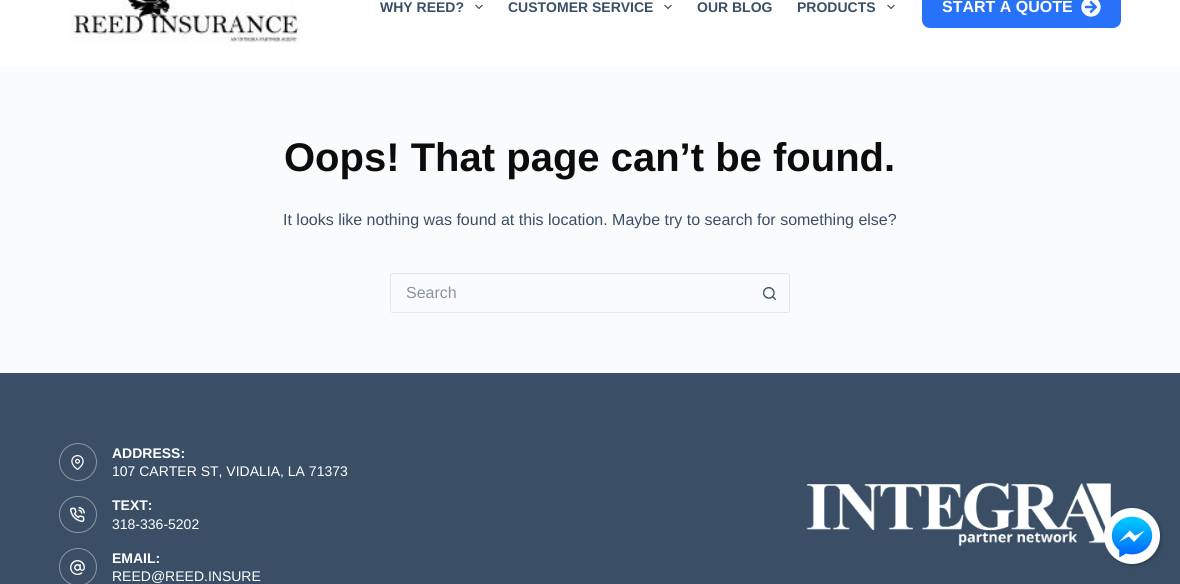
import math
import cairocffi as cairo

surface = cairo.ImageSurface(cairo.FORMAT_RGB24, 1180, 584)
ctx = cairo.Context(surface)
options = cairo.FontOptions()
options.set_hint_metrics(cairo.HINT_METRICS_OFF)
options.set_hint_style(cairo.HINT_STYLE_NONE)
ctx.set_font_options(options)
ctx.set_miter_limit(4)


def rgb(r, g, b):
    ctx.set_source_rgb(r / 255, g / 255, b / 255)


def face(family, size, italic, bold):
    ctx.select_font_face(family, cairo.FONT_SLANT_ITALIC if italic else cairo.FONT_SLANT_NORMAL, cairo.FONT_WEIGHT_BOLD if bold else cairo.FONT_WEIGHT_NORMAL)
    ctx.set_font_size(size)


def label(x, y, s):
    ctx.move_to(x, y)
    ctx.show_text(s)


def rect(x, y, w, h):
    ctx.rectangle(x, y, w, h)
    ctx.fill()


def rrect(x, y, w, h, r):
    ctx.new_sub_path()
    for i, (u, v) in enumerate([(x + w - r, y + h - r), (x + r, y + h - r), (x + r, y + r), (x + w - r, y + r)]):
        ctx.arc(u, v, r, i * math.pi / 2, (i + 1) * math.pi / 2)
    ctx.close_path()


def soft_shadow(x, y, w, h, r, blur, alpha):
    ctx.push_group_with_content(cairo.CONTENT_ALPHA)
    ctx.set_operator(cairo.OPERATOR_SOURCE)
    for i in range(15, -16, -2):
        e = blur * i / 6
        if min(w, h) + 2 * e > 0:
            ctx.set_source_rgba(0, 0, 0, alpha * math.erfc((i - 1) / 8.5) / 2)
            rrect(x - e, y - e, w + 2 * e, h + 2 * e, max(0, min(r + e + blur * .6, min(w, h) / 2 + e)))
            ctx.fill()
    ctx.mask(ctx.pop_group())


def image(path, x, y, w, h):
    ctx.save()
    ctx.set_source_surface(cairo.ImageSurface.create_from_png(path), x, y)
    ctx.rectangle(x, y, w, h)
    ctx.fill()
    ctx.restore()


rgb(250, 251, 252)
ctx.paint()
rgb(255, 255, 255)
rect(0, 0, 1180, 67)
image('image0.png', 69, 0, 232, 43)
face('Liberation Sans', 14, 0, 1)
rgb(58, 79, 102)
label(380, 12, 'WHY REED?')
image('image1.png', 475, 4, 8, 6)
label(508, 12, 'CUSTOMER SERVICE')
image('image1.png', 664, 4, 8, 6)
label(697, 12, 'OUR BLOG')
label(797, 12, 'PRODUCTS')
image('image1.png', 887, 4, 8, 6)
rgb(40, 114, 250)
rrect(922, -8, 199, 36, 8)
ctx.fill()
face('Liberation Sans', 16, 0, 1)
rgb(255, 255, 255)
label(942, 12, 'START A QUOTE')
image('image2.png', 1081, 0, 20, 17)
face('Liberation Sans', 40, 0, 1)
rgb(12, 12, 12)
label(284, 171, 'Oops! That page can’t be found.')
face('Liberation Sans', 16, 0, 0)
rgb(58, 79, 102)
label(283, 225, 'It looks like nothing was found at this location. Maybe try to search for something else?')
rgb(225, 232, 237)
ctx.set_fill_rule(cairo.FILL_RULE_EVEN_ODD)
ctx.new_path()
ctx.move_to(393, 273)
ctx.line_to(750, 273)
ctx.line_to(750, 313)
ctx.line_to(393, 313)
ctx.curve_to(391, 313, 390, 312, 390, 310)
ctx.line_to(390, 276)
ctx.curve_to(390, 274, 391, 273, 393, 273)
ctx.close_path()
ctx.move_to(393, 274)
ctx.line_to(750, 274)
ctx.line_to(750, 312)
ctx.line_to(392, 312)
ctx.curve_to(390, 310, 391, 305, 391, 304)
ctx.line_to(391, 276)
ctx.line_to(392, 274)
ctx.close_path()
ctx.fill()
rgb(135, 148, 162)
label(406, 298, 'Search')
rgb(225, 232, 237)
ctx.new_path()
ctx.move_to(750, 273)
ctx.line_to(787, 273)
ctx.curve_to(789, 273, 790, 274, 790, 276)
ctx.line_to(790, 310)
ctx.curve_to(790, 312, 789, 313, 787, 313)
ctx.line_to(750, 313)
ctx.close_path()
ctx.move_to(750, 274)
ctx.line_to(787, 274)
ctx.curve_to(788, 274, 789, 275, 789, 276)
ctx.line_to(789, 310)
ctx.curve_to(789, 311, 788, 312, 787, 312)
ctx.line_to(750, 312)
ctx.close_path()
ctx.fill()
image('image3.png', 763, 287, 13, 13)
rgb(58, 79, 102)
rect(0, 373, 1180, 211)
ctx.arc(78, 462, 18.5, 0, 2 * math.pi)
rgb(138, 151, 165)
ctx.set_line_width(1)
ctx.stroke()
image('image4.png', 71, 455, 13, 15)
face('Liberation Sans', 14, 0, 1)
rgb(255, 255, 255)
label(112, 458, 'ADDRESS:')
face('Liberation Sans', 14, 0, 0)
label(112, 476, '107 CARTER ST, VIDALIA, LA 71373')
rrect(59.5, 496.5, 37, 36, 18)
rgb(138, 151, 165)
ctx.stroke()
image('image5.png', 70, 507, 15, 15)
face('Liberation Sans', 14, 0, 1)
rgb(255, 255, 255)
label(112, 510, 'TEXT:')
face('Liberation Sans', 14, 0, 0)
label(112, 529, '318-336-5202')
ctx.new_path()
ctx.arc(78, 567, 18.5, 0, 2 * math.pi)
rgb(138, 151, 165)
ctx.stroke()
image('image6.png', 70, 560, 15, 15)
face('Liberation Sans', 14, 0, 1)
rgb(255, 255, 255)
label(112, 563, 'EMAIL:')
face('Liberation Sans', 14, 0, 0)
label(112, 581, 'REED@REED.INSURE')
image('image7.png', 806, 482, 305, 64)
rgb(0, 0, 0)
soft_shadow(1106, 510, 56, 56, 28, 2, 0.2)
image('image8.png', 1104, 508, 56, 56)
surface.write_to_png('render.png')
